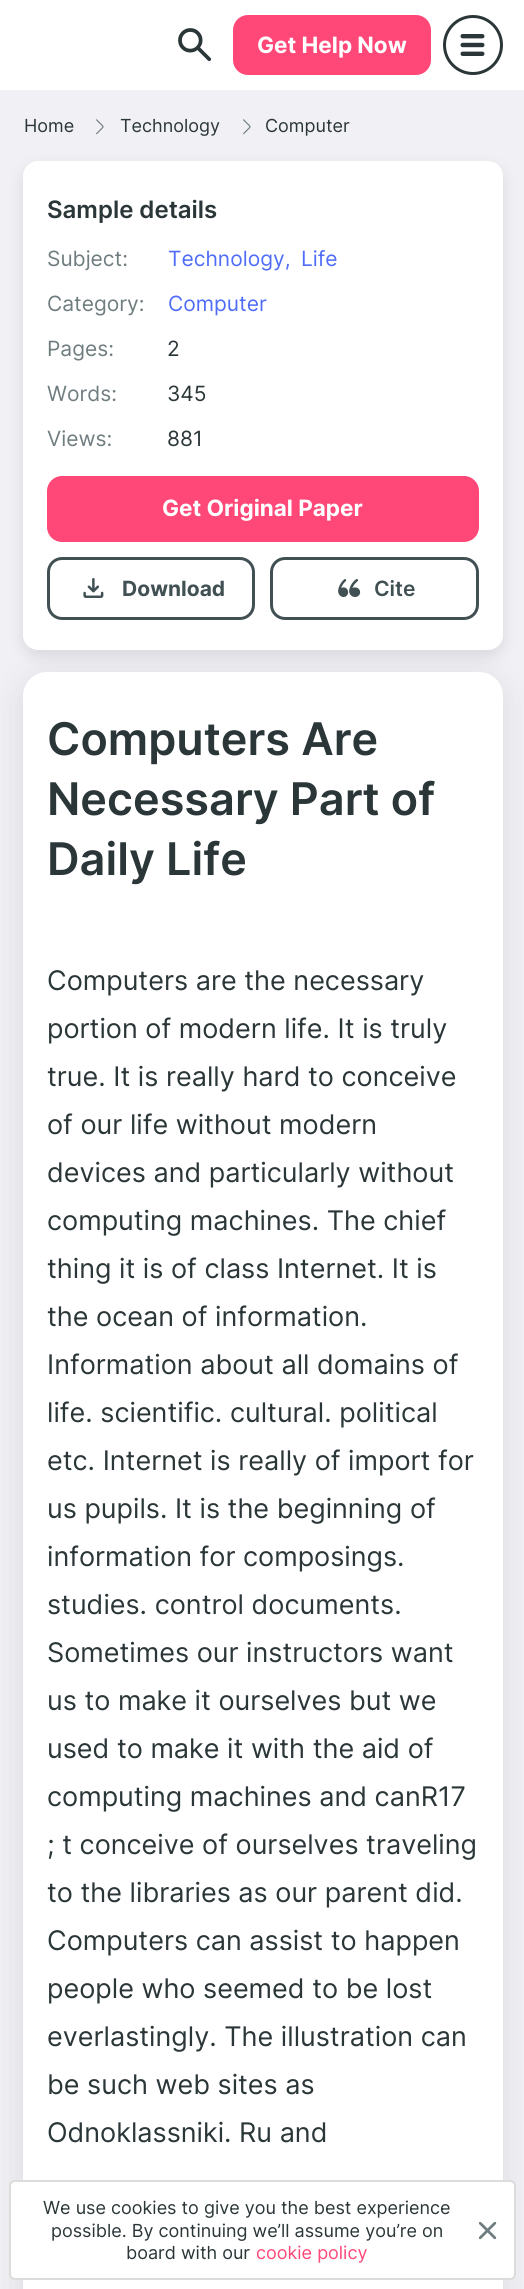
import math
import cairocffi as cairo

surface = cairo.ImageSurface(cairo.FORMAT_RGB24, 524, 2289)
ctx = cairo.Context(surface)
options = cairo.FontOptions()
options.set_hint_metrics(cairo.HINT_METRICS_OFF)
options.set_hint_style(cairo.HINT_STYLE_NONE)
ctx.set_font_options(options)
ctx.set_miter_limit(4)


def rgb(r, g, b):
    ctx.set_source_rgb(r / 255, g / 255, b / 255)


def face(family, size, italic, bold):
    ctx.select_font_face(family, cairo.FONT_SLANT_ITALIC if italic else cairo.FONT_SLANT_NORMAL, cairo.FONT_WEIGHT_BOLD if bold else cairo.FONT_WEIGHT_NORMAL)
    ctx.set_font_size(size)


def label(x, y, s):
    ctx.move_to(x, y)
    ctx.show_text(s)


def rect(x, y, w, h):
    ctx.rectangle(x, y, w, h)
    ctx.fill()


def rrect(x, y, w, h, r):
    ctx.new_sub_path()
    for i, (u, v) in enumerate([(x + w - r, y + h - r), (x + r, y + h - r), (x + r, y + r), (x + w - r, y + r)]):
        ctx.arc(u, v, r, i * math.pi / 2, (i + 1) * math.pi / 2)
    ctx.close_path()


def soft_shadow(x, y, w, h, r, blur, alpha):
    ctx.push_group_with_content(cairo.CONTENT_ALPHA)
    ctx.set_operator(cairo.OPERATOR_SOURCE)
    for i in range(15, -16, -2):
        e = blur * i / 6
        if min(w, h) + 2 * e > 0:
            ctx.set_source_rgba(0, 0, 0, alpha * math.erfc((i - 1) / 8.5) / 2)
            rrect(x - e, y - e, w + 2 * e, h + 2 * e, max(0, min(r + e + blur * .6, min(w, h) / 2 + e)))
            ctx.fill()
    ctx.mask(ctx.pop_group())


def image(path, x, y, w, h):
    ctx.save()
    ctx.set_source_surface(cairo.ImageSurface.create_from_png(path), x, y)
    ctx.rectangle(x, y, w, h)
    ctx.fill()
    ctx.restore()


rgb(240, 240, 245)
ctx.paint()
rgb(255, 255, 255)
rect(0, 0, 524, 90)
image('image0.png', 178, 28, 34, 34)
rgb(255, 71, 120)
rrect(234.5, 16.5, 195, 57, 13.5)
ctx.fill_preserve()
ctx.set_line_width(3)
ctx.stroke()
face('Inter', 22.5, 0, 1)
rgb(255, 255, 255)
label(257, 53, 'Get Help Now')
image('image1.png', 443, 15, 60, 60)
face('Inter', 18, 0, 0)
rgb(43, 54, 56)
label(24, 132, 'Home')
image('image2.png', 96, 119, 8, 16)
label(120, 132, 'Technology')
image('image2.png', 243, 119, 8, 16)
label(265, 132, 'Computer')
rgb(0, 0, 0)
soft_shadow(23, 167, 480, 489, 15, 7.5, 0.1)
rgb(255, 255, 255)
rrect(23, 161, 480, 489, 15)
ctx.fill()
face('Inter SemiBold', 24, 0, 0)
rgb(43, 54, 56)
label(47, 218, 'Sample details')
face('Inter', 21, 0, 0)
rgb(112, 125, 128)
label(47, 266, 'Subject:')
rgb(80, 109, 248)
label(168, 266, 'Technology,')
label(301, 266, 'Life')
rgb(112, 125, 128)
label(47, 311, 'Category:')
rgb(80, 109, 248)
label(168, 311, 'Computer')
rgb(112, 125, 128)
label(47, 356, 'Pages:')
rgb(43, 54, 56)
label(167, 356, '2')
rgb(112, 125, 128)
label(47, 401, 'Words:')
rgb(43, 54, 56)
label(167, 401, '345')
rgb(112, 125, 128)
label(47, 446, 'Views:')
rgb(43, 54, 56)
label(167, 446, '881')
rgb(255, 71, 120)
rrect(47, 476, 432, 66, 15)
ctx.fill()
face('Inter', 22.5, 0, 1)
rgb(255, 255, 255)
label(162, 516, 'Get Original Paper')
rrect(48.5, 558.5, 205, 60, 13.5)
rgb(65, 80, 83)
ctx.stroke()
image('image3.png', 83, 578, 21, 20)
face('Inter', 21, 0, 1)
label(122, 596, 'Download')
rrect(271.5, 558.5, 206, 60, 13.5)
ctx.stroke()
image('image4.png', 338, 579, 23, 18)
face('Inter SemiBold', 21, 0, 0)
label(374, 596, 'Cite')
rgb(0, 0, 0)
soft_shadow(24, 680, 477, 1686, 23, 18, 0.1)
rgb(255, 255, 255)
rrect(23, 672, 480, 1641, 24)
ctx.fill()
face('Inter SemiBold', 45, 0, 0)
rgb(43, 54, 56)
label(47, 755, 'Computers Are')
label(47, 815, 'Necessary Part of')
label(47, 875, 'Daily Life')
face('Inter', 27, 0, 0)
label(47, 990, 'Computers are the necessary')
label(47, 1038, 'portion of modern life. It is truly')
label(47, 1086, 'true. It is really hard to conceive')
label(47, 1134, 'of our life without modern')
label(47, 1182, 'devices and particularly without')
label(47, 1230, 'computing machines. The chief')
label(47, 1278, 'thing it is of class Internet. It is')
label(47, 1326, 'the ocean of information.')
label(47, 1374, 'Information about all domains of')
label(47, 1422, 'life. scientific. cultural. political')
label(47, 1470, 'etc. Internet is really of import for')
label(47, 1518, 'us pupils. It is the beginning of')
label(47, 1566, 'information for composings.')
label(47, 1614, 'studies. control documents.')
label(47, 1662, 'Sometimes our instructors want')
label(47, 1710, 'us to make it ourselves but we')
label(47, 1758, 'used to make it with the aid of')
label(47, 1806, 'computing machines and canR17')
label(47, 1854, '; t conceive of ourselves traveling')
label(47, 1902, 'to the libraries as our parent did.')
label(47, 1950, 'Computers can assist to happen')
label(47, 1998, 'people who seemed to be lost')
label(47, 2046, 'everlastingly. The illustration can')
label(47, 2094, 'be such web sites as')
label(47, 2142, 'Odnoklassniki. Ru and')
rgb(255, 255, 255)
rrect(10, 2181, 505, 98, 5)
ctx.fill_preserve()
rgb(220, 220, 220)
ctx.set_line_width(2)
ctx.stroke()
face('Inter', 18, 0, 0)
rgb(43, 54, 56)
label(43, 2214, 'We use cookies to give you the best experience')
label(51, 2237, 'possible. By continuing we’ll assume you’re on')
label(126, 2259, 'board with our')
rgb(255, 71, 120)
label(256, 2259, 'cookie policy')
image('image5.png', 479, 2222, 18, 18)
surface.write_to_png('render.png')
